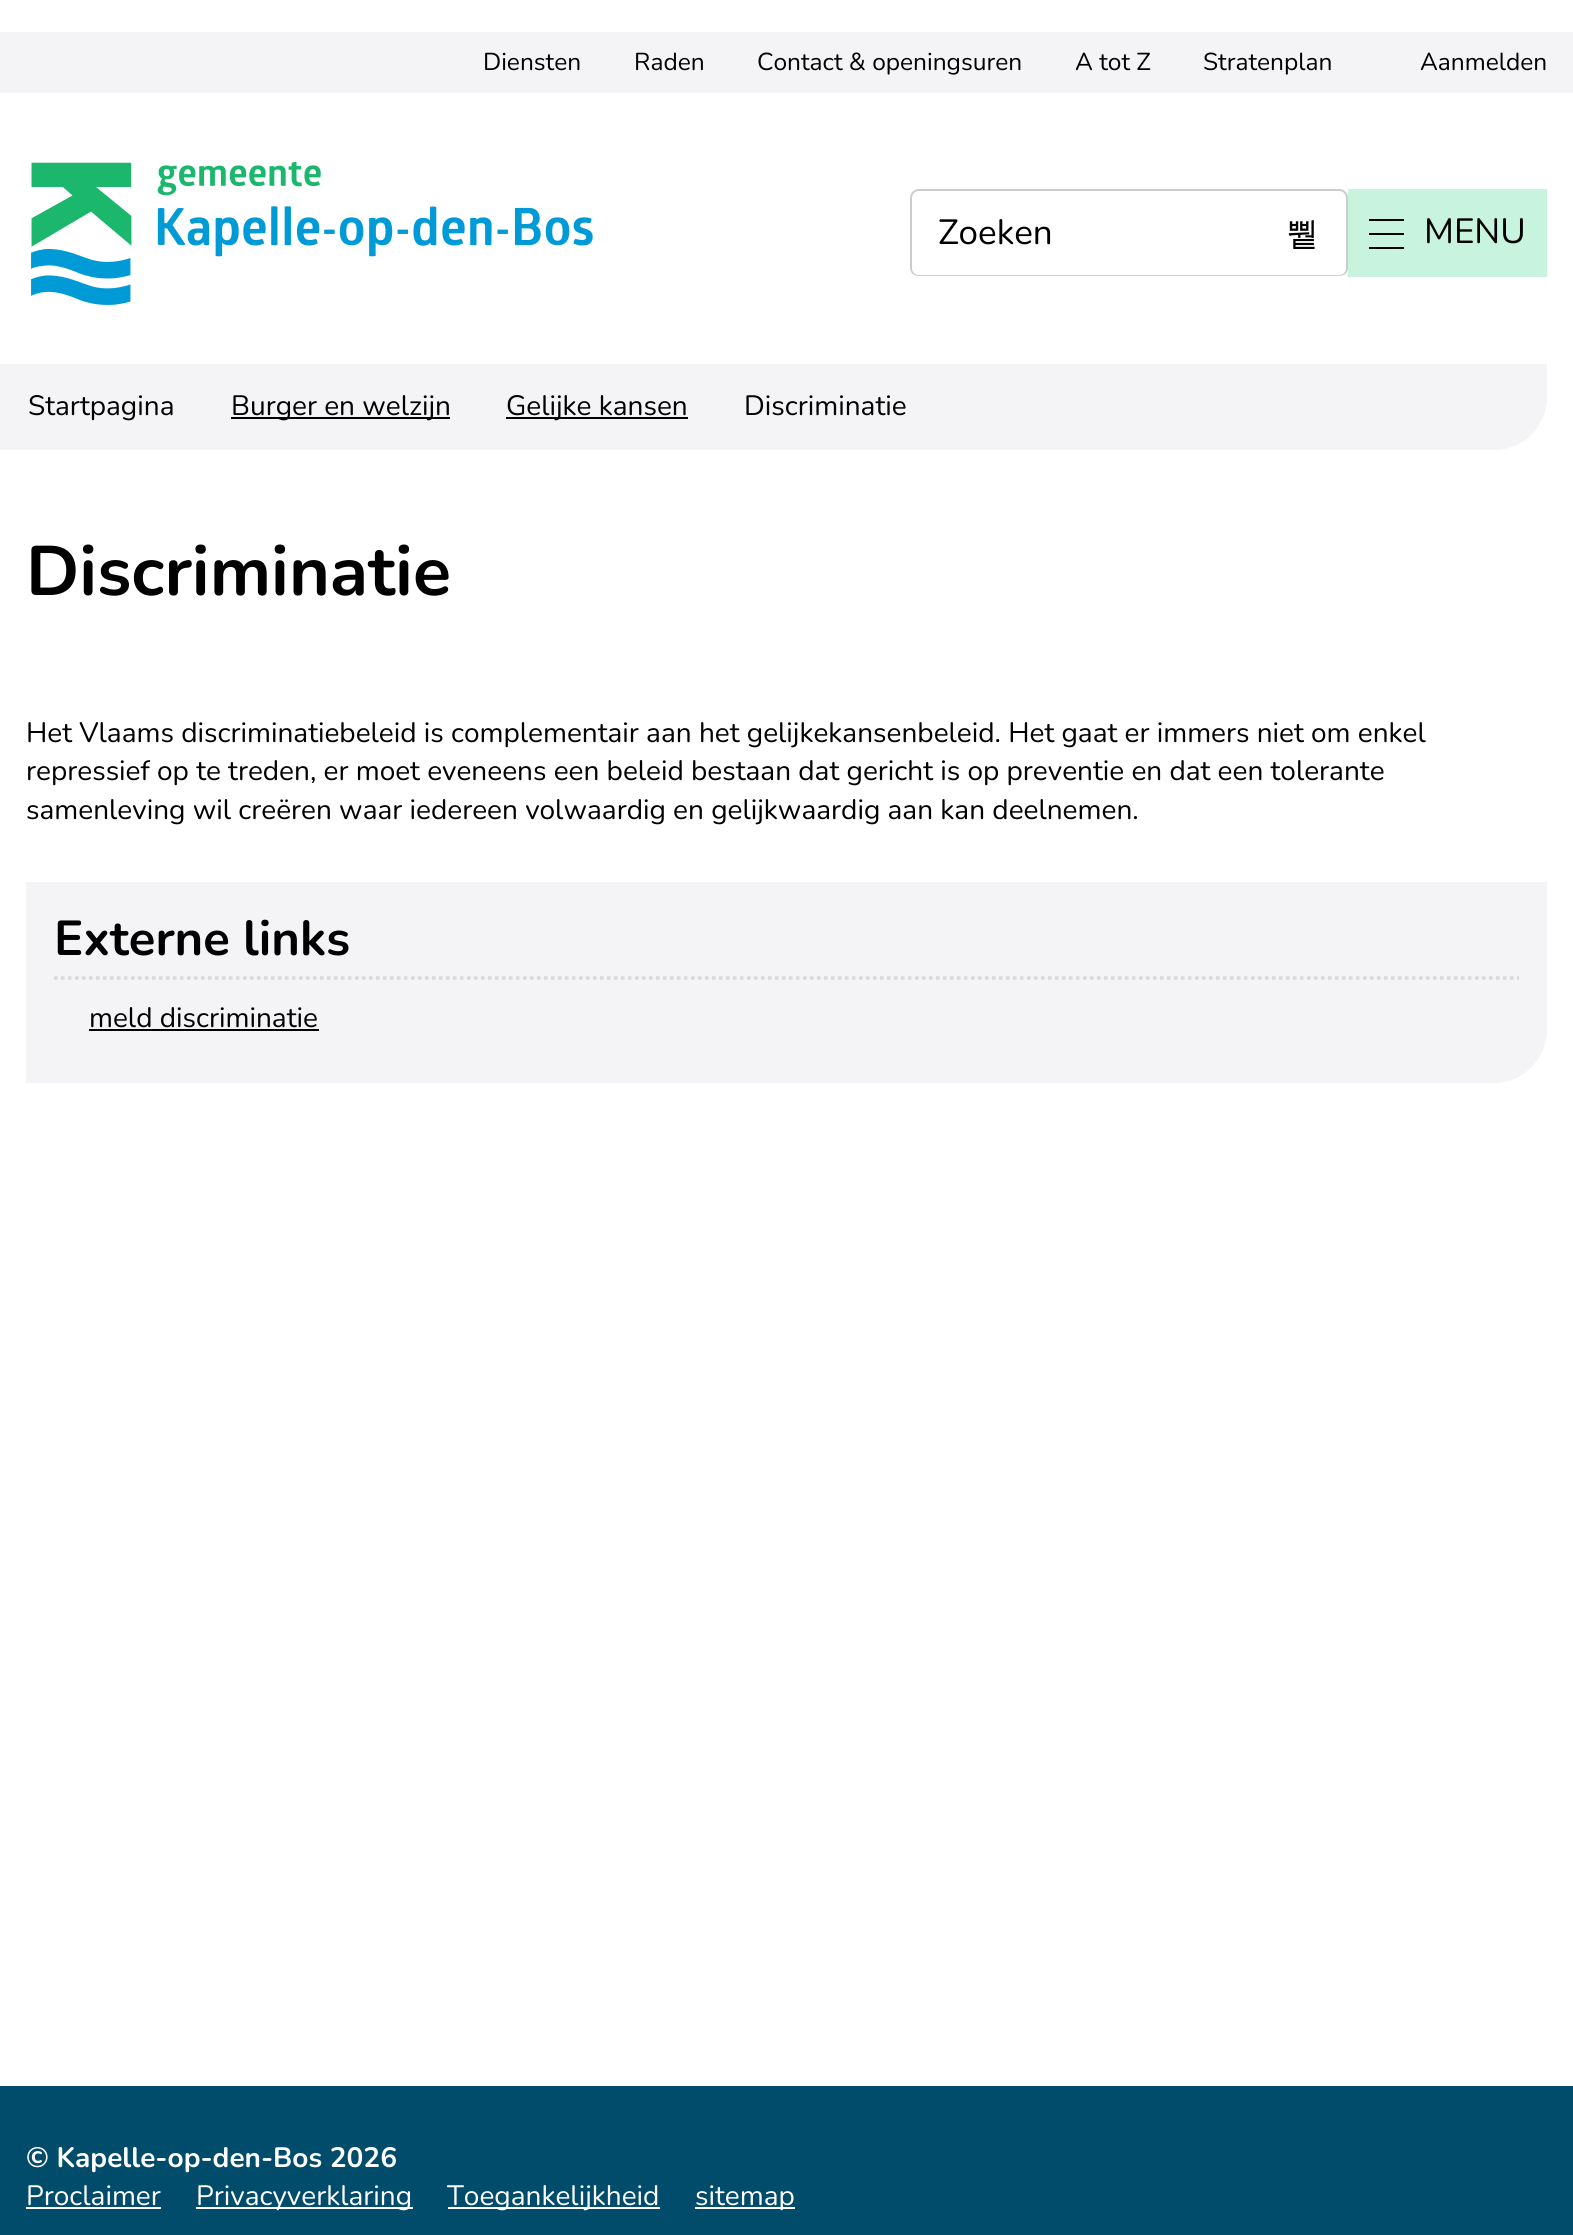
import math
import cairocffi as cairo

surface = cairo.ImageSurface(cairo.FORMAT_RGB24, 1573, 2235)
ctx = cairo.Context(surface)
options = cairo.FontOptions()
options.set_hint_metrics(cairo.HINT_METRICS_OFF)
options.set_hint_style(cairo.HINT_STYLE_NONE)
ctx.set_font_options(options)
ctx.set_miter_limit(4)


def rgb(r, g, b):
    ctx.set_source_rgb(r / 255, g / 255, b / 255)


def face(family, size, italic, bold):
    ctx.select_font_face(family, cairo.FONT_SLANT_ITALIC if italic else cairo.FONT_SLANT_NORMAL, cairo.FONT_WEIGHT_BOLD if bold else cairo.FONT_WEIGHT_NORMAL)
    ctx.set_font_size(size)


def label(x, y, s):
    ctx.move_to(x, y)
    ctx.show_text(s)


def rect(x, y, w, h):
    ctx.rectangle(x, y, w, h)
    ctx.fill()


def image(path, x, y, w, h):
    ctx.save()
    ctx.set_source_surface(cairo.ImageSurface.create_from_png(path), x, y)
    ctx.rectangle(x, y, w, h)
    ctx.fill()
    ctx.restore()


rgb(255, 255, 255)
ctx.paint()
rgb(244, 244, 246)
rect(0, 32, 1573, 61)
face('Nunito', 24.5, 0, 0)
rgb(0, 0, 0)
label(483, 70, 'Diensten')
label(634, 70, 'Raden')
label(757, 70, 'Contact & openingsuren')
label(1075, 70, 'A tot Z')
label(1203, 70, 'Stratenplan')
label(1420, 70, 'Aanmelden')
image('image0.png', 31, 161, 562, 144)
rgb(204, 204, 204)
ctx.set_fill_rule(cairo.FILL_RULE_EVEN_ODD)
ctx.new_path()
ctx.move_to(919, 189)
ctx.line_to(1260, 189)
ctx.line_to(1260, 276)
ctx.line_to(919, 276)
ctx.curve_to(914, 276, 910, 273, 910, 268)
ctx.line_to(910, 198)
ctx.curve_to(910, 193, 914, 189, 919, 189)
ctx.close_path()
ctx.move_to(919, 191)
ctx.line_to(1260, 191)
ctx.line_to(1260, 275)
ctx.line_to(919, 275)
ctx.curve_to(915, 275, 912, 272, 912, 268)
ctx.line_to(912, 198)
ctx.curve_to(912, 194, 915, 191, 919, 191)
ctx.close_path()
ctx.fill()
face('Nunito', 35, 0, 0)
rgb(0, 0, 0)
label(938, 244, 'Zoeken')
rgb(204, 204, 204)
ctx.new_path()
ctx.move_to(1260, 189)
ctx.line_to(1339, 189)
ctx.curve_to(1344, 189, 1348, 193, 1348, 198)
ctx.line_to(1348, 268)
ctx.curve_to(1348, 273, 1344, 276, 1339, 276)
ctx.line_to(1260, 276)
ctx.close_path()
ctx.move_to(1260, 191)
ctx.line_to(1339, 191)
ctx.curve_to(1343, 191, 1346, 194, 1346, 198)
ctx.line_to(1346, 268)
ctx.curve_to(1346, 272, 1343, 275, 1339, 275)
ctx.line_to(1260, 275)
ctx.close_path()
ctx.fill()
face('WenQuanYi Zen Hei Medium', 33, 0, 0)
rgb(0, 0, 0)
label(1286, 245, '쀁')
rgb(200, 243, 223)
rect(1348, 189, 199, 88)
rgb(0, 0, 0)
rect(1369, 233, 35, 2)
rect(1369, 219, 35, 2)
rect(1369, 247, 35, 2)
face('Nunito', 35, 0, 0)
label(1424, 243, 'MENU')
rgb(244, 244, 246)
rect(0, 364, 26, 86)
ctx.new_path()
ctx.move_to(26, 364)
ctx.line_to(1547, 364)
ctx.line_to(1547, 397)
ctx.curve_to(1547, 426.5, 1523.5, 450, 1494, 450)
ctx.line_to(26, 450)
ctx.close_path()
ctx.fill()
face('Nunito', 28, 0, 0)
rgb(0, 0, 0)
label(28, 415, 'Startpagina')
rect(231, 417, 219, 2)
label(231, 415, 'Burger en welzijn')
rect(506, 417, 182, 2)
label(506, 415, 'Gelijke kansen')
label(744, 415, 'Discriminatie')
face('Nunito', 70, 0, 1)
label(26, 595, 'Discriminatie')
face('Nunito', 28, 0, 0)
label(26, 742, 'Het Vlaams discriminatiebeleid is complementair aan het gelijkekansenbeleid. Het gaat er immers niet om enkel')
label(26, 780, 'repressief op te treden, er moet eveneens een beleid bestaan dat gericht is op preventie en dat een tolerante')
label(26, 819, 'samenleving wil creëren waar iedereen volwaardig en gelijkwaardig aan kan deelnemen.')
rgb(244, 244, 246)
ctx.new_path()
ctx.move_to(27, 883)
ctx.line_to(1546, 883)
ctx.line_to(1546, 1030)
ctx.curve_to(1546, 1058.5, 1522.5, 1082, 1494, 1082)
ctx.line_to(27, 1082)
ctx.close_path()
ctx.fill_preserve()
ctx.stroke()
ctx.new_path()
ctx.move_to(54, 978)
ctx.line_to(1519, 978)
rgb(216, 216, 223)
ctx.set_line_width(3.5)
ctx.set_dash([3.5, 3.5])
ctx.stroke()
face('Nunito', 49, 0, 1)
rgb(0, 0, 0)
label(54, 955, 'Externe links')
face('Nunito', 28, 0, 0)
label(89, 1027, 'meld discriminatie')
rect(89, 1029, 230, 2)
rgb(0, 76, 106)
rect(0, 2086, 1573, 149)
face('Nunito', 28, 0, 1)
rgb(255, 255, 255)
label(26, 2167, '© Kapelle-op-den-Bos 2026')
face('Nunito', 28, 0, 0)
label(26, 2205, 'Proclaimer')
rect(26, 2207, 135, 2)
rect(196, 2207, 217, 2)
label(196, 2205, 'Privacyverklaring')
rect(448, 2207, 212, 2)
label(447, 2205, 'Toegankelijkheid')
rect(695, 2207, 100, 2)
label(695, 2205, 'sitemap')
surface.write_to_png('render.png')
